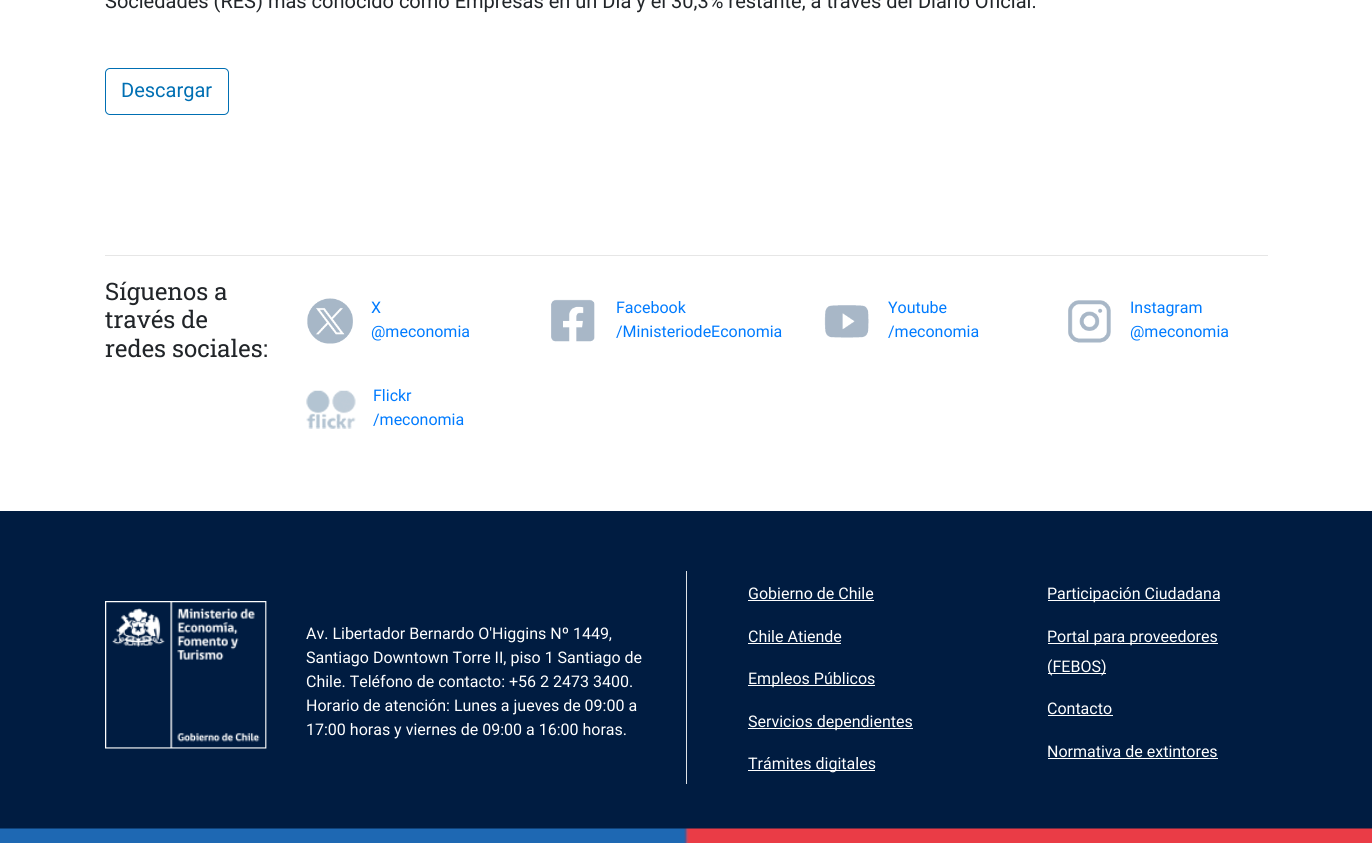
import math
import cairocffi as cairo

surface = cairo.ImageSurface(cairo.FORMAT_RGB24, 1372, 843)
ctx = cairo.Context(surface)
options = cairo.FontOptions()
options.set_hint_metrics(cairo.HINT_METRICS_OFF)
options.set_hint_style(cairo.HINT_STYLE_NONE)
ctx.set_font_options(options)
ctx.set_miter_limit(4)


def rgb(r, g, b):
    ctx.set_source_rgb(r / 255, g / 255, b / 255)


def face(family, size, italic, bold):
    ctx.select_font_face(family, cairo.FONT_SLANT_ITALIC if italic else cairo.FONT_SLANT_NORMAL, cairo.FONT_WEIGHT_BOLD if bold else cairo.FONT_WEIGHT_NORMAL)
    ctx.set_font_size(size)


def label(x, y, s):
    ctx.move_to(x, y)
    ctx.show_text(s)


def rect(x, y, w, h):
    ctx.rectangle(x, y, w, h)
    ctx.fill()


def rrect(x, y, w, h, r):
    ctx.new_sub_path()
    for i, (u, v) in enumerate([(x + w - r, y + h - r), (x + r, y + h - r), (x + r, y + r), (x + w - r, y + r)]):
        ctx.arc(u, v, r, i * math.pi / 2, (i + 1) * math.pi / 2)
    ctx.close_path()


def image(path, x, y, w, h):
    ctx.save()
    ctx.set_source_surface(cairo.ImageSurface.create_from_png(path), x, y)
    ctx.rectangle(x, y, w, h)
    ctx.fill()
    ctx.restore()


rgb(255, 255, 255)
ctx.paint()
face('Roboto', 20, 0, 0)
rgb(33, 37, 41)
label(105, 8, 'Sociedades (RES) más conocido como Empresas en un Día y el 30,3% restante, a través del Diario Oficial.')
rrect(105.5, 68.5, 123, 46, 4.5)
rgb(0, 111, 179)
ctx.set_line_width(1)
ctx.stroke()
label(121, 97, 'Descargar')
rgb(230, 230, 230)
rect(105, 255, 1163, 1)
face('Roboto Slab', 24, 0, 0)
rgb(33, 37, 41)
label(105, 300, 'Síguenos a')
label(105, 328, 'través de')
label(105, 357, 'redes sociales:')
image('image0.png', 307, 298, 46, 46)
face('Roboto', 16, 0, 0)
rgb(0, 123, 255)
label(371, 313, 'X')
label(371, 337, '@meconomia')
image('image1.png', 551, 299, 44, 43)
label(616, 313, 'Facebook')
label(616, 337, '/MinisteriodeEconomia')
image('image2.png', 824, 305, 45, 33)
label(888, 313, 'Youtube')
label(888, 337, '/meconomia')
image('image3.png', 1068, 300, 43, 43)
label(1130, 313, 'Instagram')
label(1130, 337, '@meconomia')
image('image4.png', 306, 390, 50, 39)
label(373, 401, 'Flickr')
label(373, 425, '/meconomia')
rgb(0, 28, 65)
rect(0, 511, 1372, 318)
image('image5.png', 0, 828, 1372, 15)
image('image6.png', 105, 601, 162, 148)
rgb(255, 255, 255)
label(306, 639, 'Av. Libertador Bernardo O\'Higgins Nº 1449,')
label(306, 663, 'Santiago Downtown Torre II, piso 1 Santiago de')
label(306, 687, 'Chile. Teléfono de contacto: +56 2 2473 3400.')
label(306, 711, 'Horario de atención: Lunes a jueves de 09:00 a')
label(306, 735, '17:00 horas y viernes de 09:00 a 16:00 horas.')
rgb(222, 226, 230)
rect(686, 571, 1, 213)
rgb(255, 255, 255)
label(748, 599, 'Gobierno de Chile')
rect(748, 600, 126, 1)
label(748, 642, 'Chile Atiende')
rect(748, 643, 93, 1)
rect(748, 685, 127, 1)
label(748, 684, 'Empleos Públicos')
rect(748, 728, 165, 1)
label(748, 727, 'Servicios dependientes')
rect(748, 770, 127, 1)
label(748, 769, 'Trámites digitales')
rect(1048, 600, 172, 1)
label(1047, 599, 'Participación Ciudadana')
rect(1048, 643, 170, 1)
label(1047, 642, 'Portal para proveedores')
rect(1048, 673, 58, 1)
label(1047, 672, '(FEBOS)')
label(1047, 714, 'Contacto')
rect(1048, 715, 65, 1)
label(1047, 757, 'Normativa de extintores')
rect(1048, 758, 170, 1)
surface.write_to_png('render.png')
